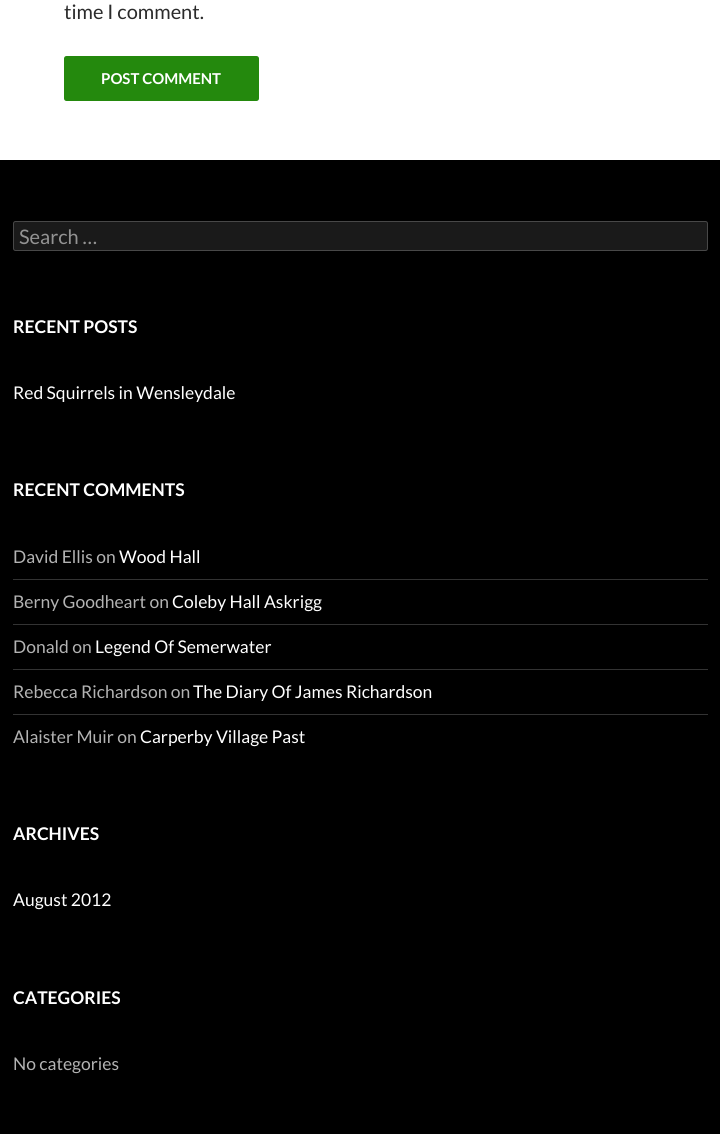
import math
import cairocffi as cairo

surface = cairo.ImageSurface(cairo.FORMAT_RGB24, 720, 1134)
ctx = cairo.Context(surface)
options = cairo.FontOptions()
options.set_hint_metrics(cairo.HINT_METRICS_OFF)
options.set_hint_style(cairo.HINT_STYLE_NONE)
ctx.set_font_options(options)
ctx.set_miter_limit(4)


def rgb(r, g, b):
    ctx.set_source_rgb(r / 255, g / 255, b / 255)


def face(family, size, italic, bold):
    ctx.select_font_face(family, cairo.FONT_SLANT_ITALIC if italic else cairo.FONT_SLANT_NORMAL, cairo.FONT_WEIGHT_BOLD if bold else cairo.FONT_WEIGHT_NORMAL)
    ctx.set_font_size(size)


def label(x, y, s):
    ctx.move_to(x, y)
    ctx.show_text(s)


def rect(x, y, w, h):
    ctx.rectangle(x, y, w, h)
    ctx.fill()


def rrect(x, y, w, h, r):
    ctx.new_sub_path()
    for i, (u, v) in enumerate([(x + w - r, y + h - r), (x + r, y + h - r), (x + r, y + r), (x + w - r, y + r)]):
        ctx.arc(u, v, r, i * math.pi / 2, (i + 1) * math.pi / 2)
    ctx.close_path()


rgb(255, 255, 255)
ctx.paint()
face('Lato', 20, 0, 0)
rgb(43, 43, 43)
label(64, 19, 'time I comment.')
rgb(36, 137, 13)
rrect(64, 56, 195, 45, 2.5)
ctx.fill()
face('Lato', 15, 0, 1)
rgb(255, 255, 255)
label(101, 84, 'POST COMMENT')
rgb(0, 0, 0)
rect(0, 160, 720, 974)
rgb(26, 26, 26)
rrect(13, 221, 695, 30, 2.5)
ctx.fill()
rrect(13.5, 221.5, 694, 29, 2)
ctx.set_source_rgba(1, 1, 1, 0.2)
ctx.set_line_width(1)
ctx.stroke()
face('Lato', 20, 0, 0)
rgb(147, 147, 147)
label(19, 244, 'Search …')
face('Lato', 17.5, 0, 1)
rgb(255, 255, 255)
label(13, 333, 'RECENT POSTS')
face('Lato', 17.5, 0, 0)
label(13, 399, 'Red Squirrels in Wensleydale')
face('Lato', 17.5, 0, 1)
label(13, 496, 'RECENT COMMENTS')
face('Lato', 17.5, 0, 0)
rgb(179, 179, 179)
label(13, 563, 'David Ellis on')
rgb(255, 255, 255)
label(119, 563, 'Wood Hall')
rgb(51, 51, 51)
rect(13, 579, 695, 1)
rgb(179, 179, 179)
label(13, 608, 'Berny Goodheart on')
rgb(255, 255, 255)
label(172, 608, 'Coleby Hall Askrigg')
rgb(51, 51, 51)
rect(13, 624, 695, 1)
rgb(179, 179, 179)
label(13, 653, 'Donald on')
rgb(255, 255, 255)
label(95, 653, 'Legend Of Semerwater')
rgb(51, 51, 51)
rect(13, 669, 695, 1)
rgb(179, 179, 179)
label(13, 698, 'Rebecca Richardson on')
rgb(255, 255, 255)
label(193, 698, 'The Diary Of James Richardson')
rgb(51, 51, 51)
rect(13, 714, 695, 1)
rgb(179, 179, 179)
label(13, 743, 'Alaister Muir on')
rgb(255, 255, 255)
label(140, 743, 'Carperby Village Past')
face('Lato', 17.5, 0, 1)
label(13, 840, 'ARCHIVES')
face('Lato', 17.5, 0, 0)
label(13, 906, 'August 2012')
face('Lato', 17.5, 0, 1)
label(13, 1004, 'CATEGORIES')
face('Lato', 17.5, 0, 0)
rgb(179, 179, 179)
label(13, 1070, 'No categories')
surface.write_to_png('render.png')
